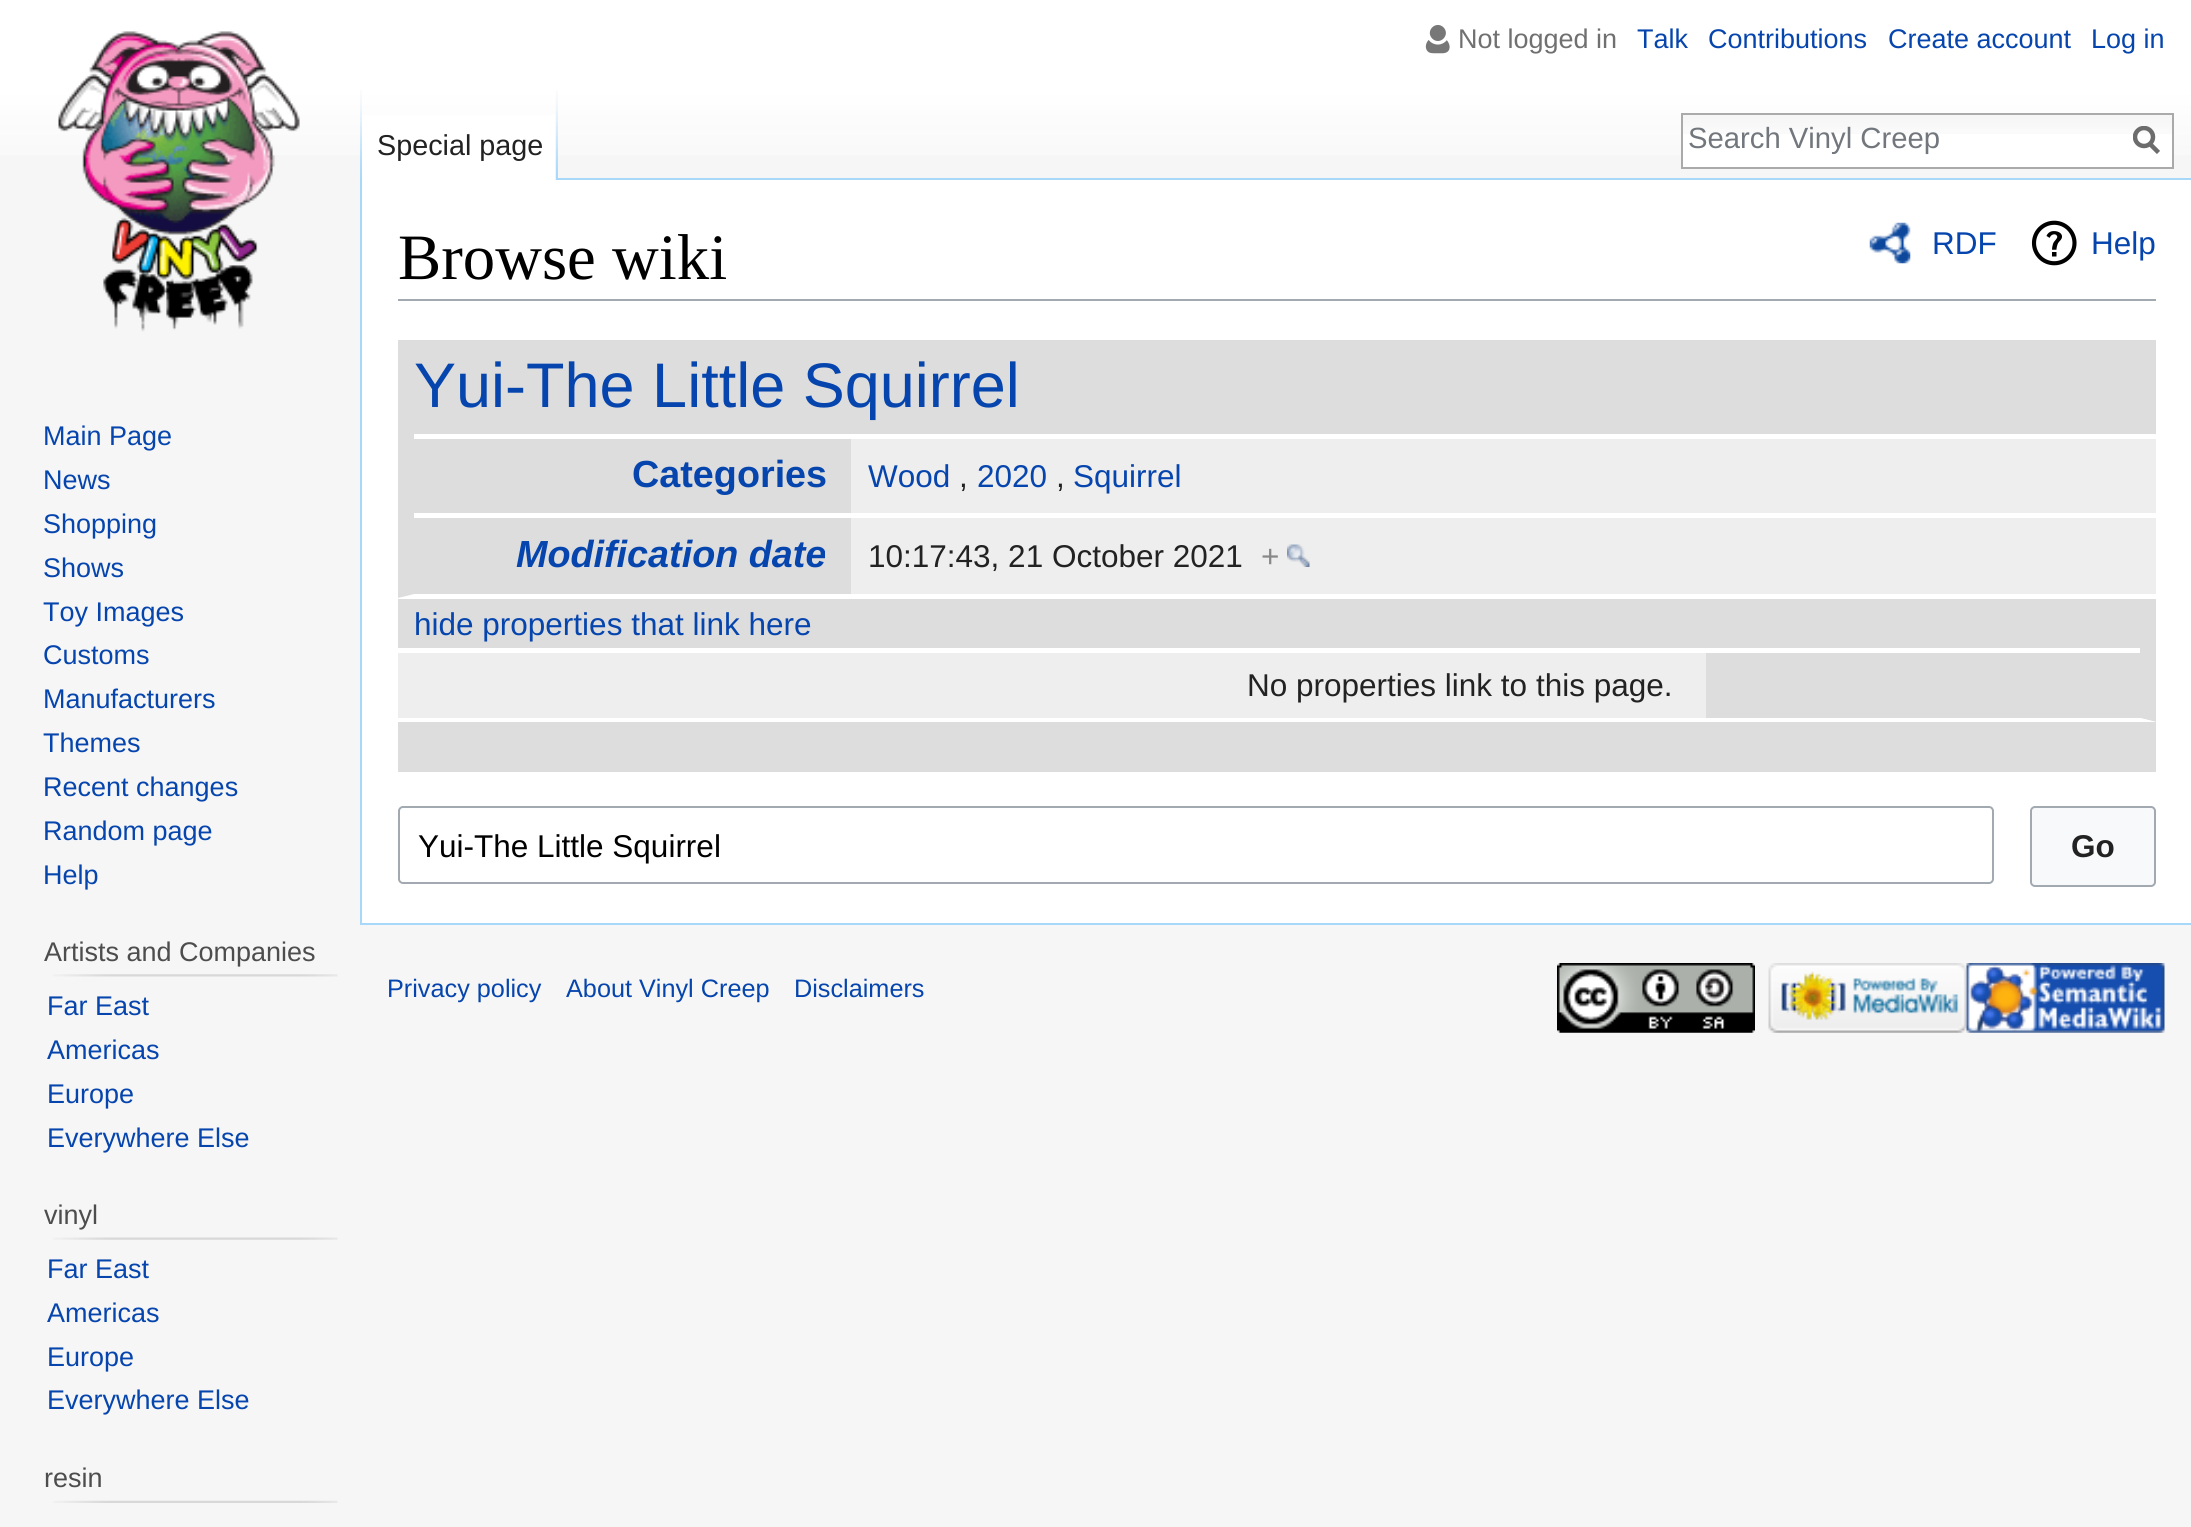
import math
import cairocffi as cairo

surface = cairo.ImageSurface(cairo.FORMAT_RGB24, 2191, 1527)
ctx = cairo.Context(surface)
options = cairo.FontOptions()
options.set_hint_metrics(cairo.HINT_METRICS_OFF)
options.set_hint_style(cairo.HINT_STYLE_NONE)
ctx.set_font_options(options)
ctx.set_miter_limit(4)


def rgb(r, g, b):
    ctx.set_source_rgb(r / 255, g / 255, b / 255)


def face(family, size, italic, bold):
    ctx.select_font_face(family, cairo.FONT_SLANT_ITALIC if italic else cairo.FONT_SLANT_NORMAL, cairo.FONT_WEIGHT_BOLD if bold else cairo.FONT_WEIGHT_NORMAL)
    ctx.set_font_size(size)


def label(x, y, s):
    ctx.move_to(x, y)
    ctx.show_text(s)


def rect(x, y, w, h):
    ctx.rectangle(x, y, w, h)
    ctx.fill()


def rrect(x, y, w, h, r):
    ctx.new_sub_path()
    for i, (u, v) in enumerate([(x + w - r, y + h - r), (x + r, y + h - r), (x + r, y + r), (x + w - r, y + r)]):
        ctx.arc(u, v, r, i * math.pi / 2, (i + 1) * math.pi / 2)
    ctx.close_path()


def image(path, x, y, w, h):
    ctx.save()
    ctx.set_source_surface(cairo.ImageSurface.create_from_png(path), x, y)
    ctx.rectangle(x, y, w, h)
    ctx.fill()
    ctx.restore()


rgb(246, 246, 246)
ctx.paint()
gradient = cairo.LinearGradient(1096, 0, 1096, 180)
gradient.add_color_stop_rgba(0.5, 1, 1, 1, 1)
gradient.add_color_stop_rgba(1, 0.965, 0.965, 0.965, 1)
ctx.set_source(gradient)
rect(0, 0, 2191, 155)
image('image0.png', 1425, 25, 25, 29)
face('Liberation Sans', 27, 0, 0)
rgb(112, 112, 112)
label(1458, 48, 'Not logged in')
rgb(6, 69, 173)
label(1637, 48, 'Talk')
label(1708, 48, 'Contributions')
label(1888, 48, 'Create account')
label(2091, 48, 'Log in')
image('image1.png', 360, 90, 2, 88)
rgb(255, 255, 255)
rect(362, 115, 194, 65)
image('image2.png', 555, 90, 3, 90)
face('Liberation Sans', 28.75, 0, 0)
rgb(34, 34, 34)
label(377, 155, 'Special page')
rgb(255, 255, 255)
rect(1683, 134, 489, 33)
image('image3.png', 1683, 115, 489, 19)
ctx.rectangle(1682, 114, 491, 54)
rgb(170, 170, 170)
ctx.stroke()
face('Liberation Sans', 29.25, 0, 0)
rgb(114, 119, 125)
label(1688, 148, 'Search Vinyl Creep')
ctx.new_path()
ctx.move_to(2158.5, 152.5)
ctx.line_to(2149.5, 143.5)
rgb(108, 108, 108)
ctx.set_line_width(4.5)
ctx.stroke()
ctx.save()
ctx.rectangle(2133, 126, 27, 29)
ctx.clip()
ctx.arc(2144, 137, 9, 0, 2 * math.pi)
ctx.stroke()
ctx.restore()
image('image4.png', 58, 31, 242, 301)
face('Liberation Sans', 27, 0, 0)
rgb(6, 69, 173)
label(43, 445, 'Main Page')
label(43, 489, 'News')
label(43, 533, 'Shopping')
label(43, 577, 'Shows')
label(43, 621, 'Toy Images')
label(43, 664, 'Customs')
label(43, 708, 'Manufacturers')
label(43, 752, 'Themes')
label(43, 796, 'Recent changes')
label(43, 840, 'Random page')
label(43, 884, 'Help')
rgb(77, 77, 77)
label(44, 961, 'Artists and Companies')
image('image5.png', 53, 974, 285, 3)
rgb(6, 69, 173)
label(47, 1015, 'Far East')
label(47, 1059, 'Americas')
label(47, 1103, 'Europe')
label(47, 1147, 'Everywhere Else')
rgb(77, 77, 77)
label(44, 1224, 'vinyl')
image('image6.png', 53, 1237, 285, 3)
rgb(6, 69, 173)
label(47, 1278, 'Far East')
label(47, 1322, 'Americas')
label(47, 1366, 'Europe')
label(47, 1409, 'Everywhere Else')
rgb(77, 77, 77)
label(44, 1487, 'resin')
image('image7.png', 53, 1500, 285, 3)
rgb(255, 255, 255)
rect(362, 180, 1829, 743)
rgb(167, 215, 249)
rect(558, 178, 1633, 2)
rect(360, 923, 1831, 2)
rect(360, 178, 2, 747)
rgb(162, 169, 177)
rect(398, 299, 1758, 2)
face('Liberation Serif', 64.75, 0, 0)
rgb(0, 0, 0)
label(398, 279, 'Browse wiki')
image('image8.png', 1869, 222, 42, 42)
face('Liberation Sans', 31.5, 0, 0)
rgb(6, 69, 173)
label(1932, 254, 'RDF')
image('image9.png', 2031, 220, 46, 46)
label(2091, 254, 'Help')
rgb(221, 221, 221)
rect(398, 340, 1758, 94)
face('Liberation Sans', 63, 0, 0)
rgb(6, 69, 173)
label(414, 407, 'Yui-The Little Squirrel')
rgb(221, 221, 221)
ctx.new_path()
ctx.move_to(398, 598)
ctx.line_to(398, 434)
ctx.line_to(414, 434)
ctx.line_to(414, 594)
ctx.close_path()
ctx.fill()
rgb(238, 238, 238)
rect(851, 439, 1305, 74)
rgb(221, 221, 221)
rect(414, 439, 437, 74)
face('Liberation Sans', 37.75, 0, 1)
rgb(6, 69, 173)
label(632, 487, 'Categories')
face('Liberation Sans', 31.5, 0, 0)
label(868, 487, 'Wood')
rgb(34, 34, 34)
label(959, 487, ',')
rgb(6, 69, 173)
label(977, 487, '2020')
rgb(34, 34, 34)
label(1056, 487, ',')
rgb(6, 69, 173)
label(1073, 487, 'Squirrel')
rgb(238, 238, 238)
rect(851, 518, 1305, 76)
rgb(221, 221, 221)
rect(414, 518, 437, 76)
face('Liberation Sans', 37.75, 1, 1)
rgb(6, 69, 173)
label(516, 567, 'Modification date')
face('Liberation Sans', 31.5, 0, 0)
rgb(34, 34, 34)
label(868, 567, '10:17:43, 21 October 2021')
rgb(136, 136, 136)
label(1261, 567, '+')
image('image10.png', 1287, 544, 23, 23)
rgb(221, 221, 221)
rect(398, 599, 1758, 49)
rgb(6, 69, 173)
label(414, 635, 'hide properties that link here')
rgb(221, 221, 221)
ctx.new_path()
ctx.move_to(2156, 648)
ctx.line_to(2156, 722)
ctx.line_to(2140, 718)
ctx.line_to(2140, 648)
ctx.close_path()
ctx.fill()
rgb(255, 255, 255)
ctx.new_path()
ctx.move_to(2156, 722)
ctx.line_to(398, 722)
ctx.line_to(398, 718)
ctx.line_to(2140, 718)
ctx.close_path()
ctx.fill()
rgb(238, 238, 238)
rect(398, 653, 1308, 65)
rgb(34, 34, 34)
label(1247, 696, 'No properties link to this page.')
rgb(221, 221, 221)
rect(1706, 653, 434, 65)
rect(398, 722, 1758, 50)
rrect(399, 807, 1594, 76, 4)
rgb(162, 169, 177)
ctx.set_line_width(2)
ctx.stroke()
rgb(0, 0, 0)
label(418, 857, 'Yui-The Little Squirrel')
rgb(248, 249, 250)
rrect(2031, 807, 124, 79, 4)
ctx.fill_preserve()
rgb(162, 169, 177)
ctx.stroke()
face('Liberation Sans', 31.5, 0, 1)
rgb(34, 34, 34)
label(2071, 857, 'Go')
face('Liberation Sans', 25.25, 0, 0)
rgb(6, 69, 173)
label(387, 997, 'Privacy policy')
label(566, 997, 'About Vinyl Creep')
label(794, 997, 'Disclaimers')
image('image11.png', 1557, 963, 198, 70)
image('image12.png', 1768, 963, 199, 70)
image('image13.png', 1966, 963, 199, 70)
surface.write_to_png('render.png')
